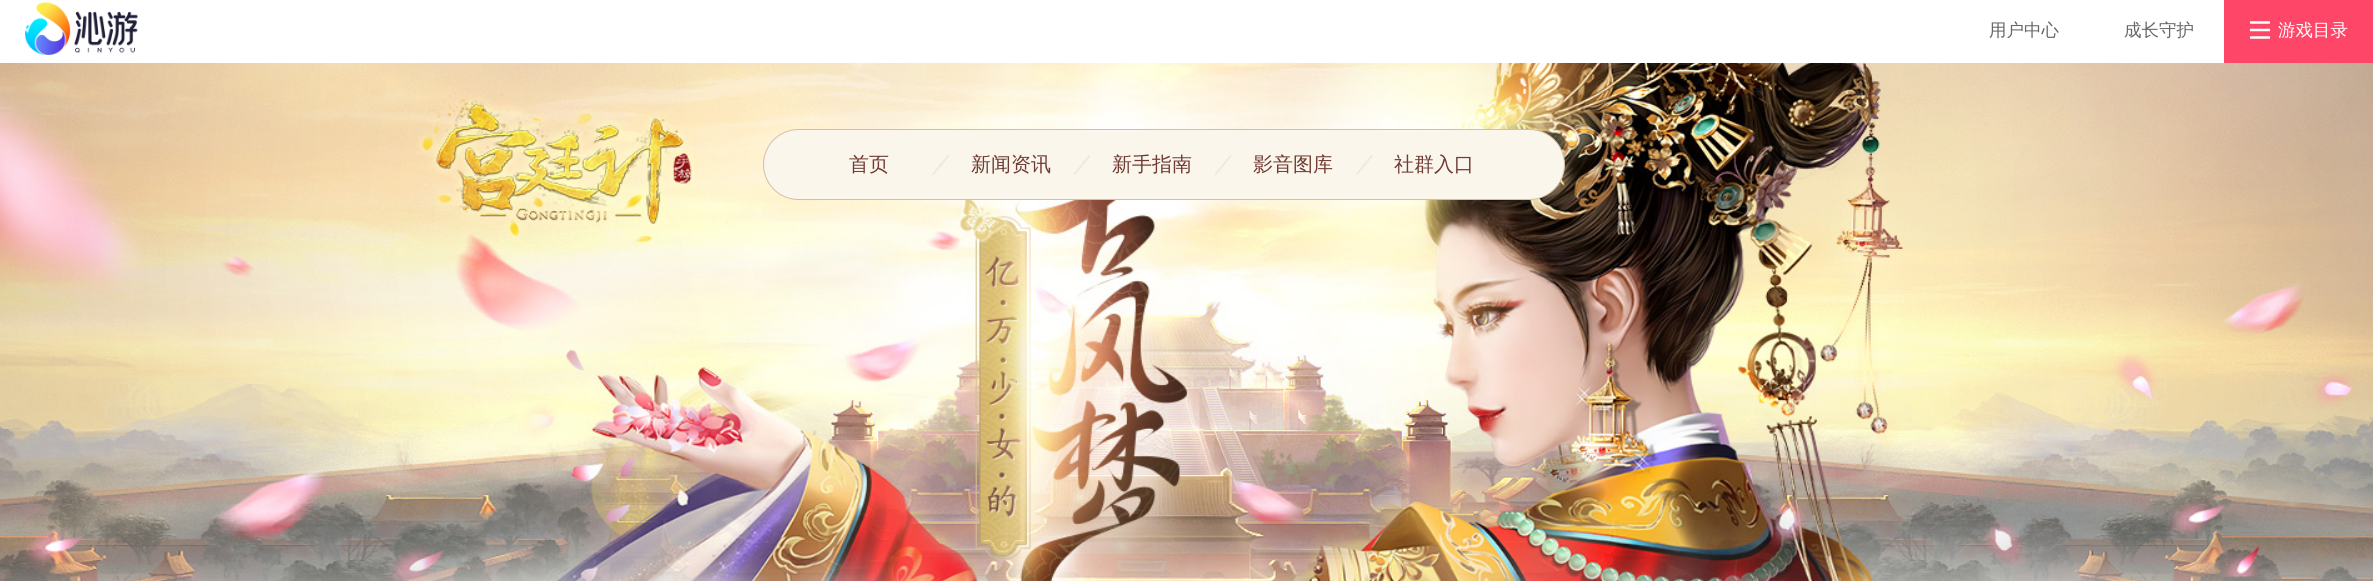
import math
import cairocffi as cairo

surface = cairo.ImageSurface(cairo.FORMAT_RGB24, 2373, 581)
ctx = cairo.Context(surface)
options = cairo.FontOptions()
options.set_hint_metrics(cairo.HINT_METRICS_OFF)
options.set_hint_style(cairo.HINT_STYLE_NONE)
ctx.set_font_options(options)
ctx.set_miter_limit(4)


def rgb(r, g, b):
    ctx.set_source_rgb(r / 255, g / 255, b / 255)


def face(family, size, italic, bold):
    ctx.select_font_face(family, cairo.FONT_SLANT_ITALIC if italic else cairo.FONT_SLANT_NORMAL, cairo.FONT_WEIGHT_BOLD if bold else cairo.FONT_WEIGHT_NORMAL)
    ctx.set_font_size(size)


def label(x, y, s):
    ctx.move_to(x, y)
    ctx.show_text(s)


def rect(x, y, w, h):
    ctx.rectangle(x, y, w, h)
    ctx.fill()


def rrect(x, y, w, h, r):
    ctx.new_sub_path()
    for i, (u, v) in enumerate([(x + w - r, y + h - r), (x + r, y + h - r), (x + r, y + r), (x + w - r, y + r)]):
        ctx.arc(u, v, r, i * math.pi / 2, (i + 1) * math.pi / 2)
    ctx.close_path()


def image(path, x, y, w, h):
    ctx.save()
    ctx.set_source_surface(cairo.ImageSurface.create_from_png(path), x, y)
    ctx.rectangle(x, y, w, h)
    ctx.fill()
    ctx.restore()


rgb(255, 255, 255)
ctx.paint()
image('image0.png', 0, 63, 2373, 518)
image('image1.png', 25, 2, 113, 53)
face('WenQuanYi Zen Hei Medium', 17.5, 0, 0)
rgb(102, 102, 102)
label(1989, 36, '用户中心')
label(2124, 36, '成长守护')
rgb(254, 71, 104)
rect(2224, 0, 149, 63)
image('image2.png', 2250, 21, 20, 18)
rgb(255, 255, 255)
label(2278, 36, '游戏目录')
image('image3.png', 418, 92, 276, 151)
rgb(251, 246, 235)
rrect(763.5, 129.5, 801, 70, 35)
ctx.fill_preserve()
rgb(209, 192, 167)
ctx.set_line_width(1)
ctx.stroke()
face('WenQuanYi Zen Hei Medium', 20, 0, 0)
rgb(111, 59, 52)
label(849, 171, '首页')
image('image4.png', 932, 155, 17, 20)
label(971, 171, '新闻资讯')
image('image5.png', 1073, 155, 17, 20)
label(1112, 171, '新手指南')
image('image6.png', 1215, 155, 17, 20)
label(1253, 171, '影音图库')
image('image7.png', 1356, 155, 17, 20)
label(1394, 171, '社群入口')
surface.write_to_png('render.png')
